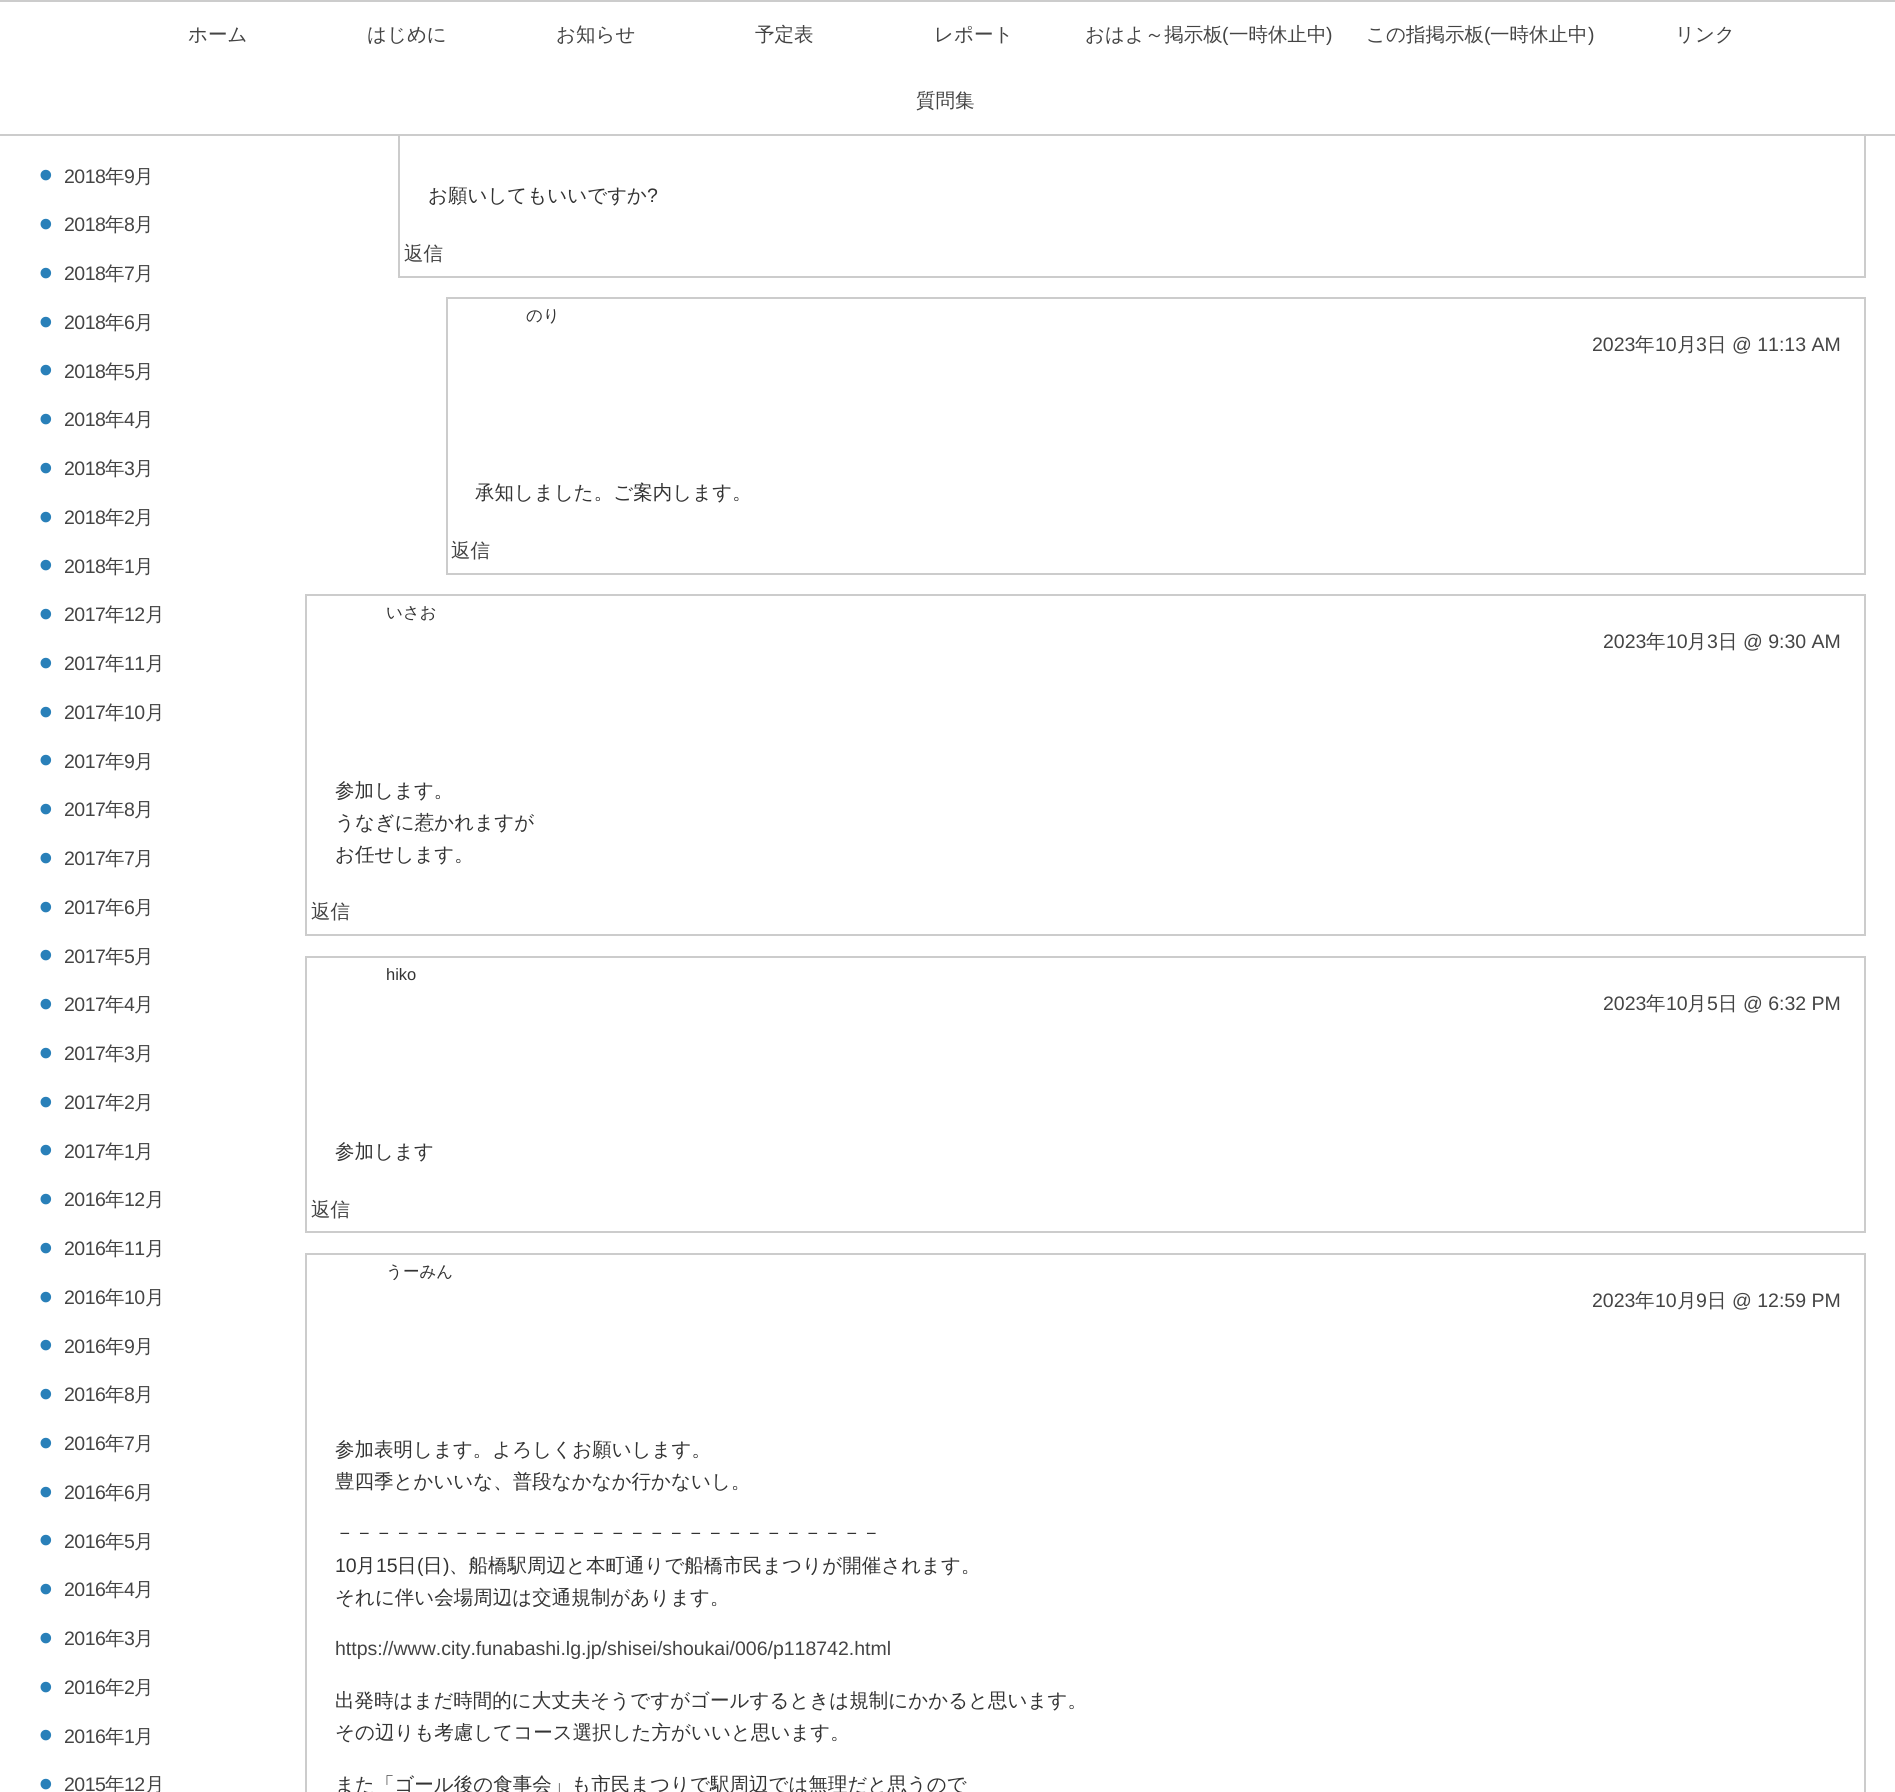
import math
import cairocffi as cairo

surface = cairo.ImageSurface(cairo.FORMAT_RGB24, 1895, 1792)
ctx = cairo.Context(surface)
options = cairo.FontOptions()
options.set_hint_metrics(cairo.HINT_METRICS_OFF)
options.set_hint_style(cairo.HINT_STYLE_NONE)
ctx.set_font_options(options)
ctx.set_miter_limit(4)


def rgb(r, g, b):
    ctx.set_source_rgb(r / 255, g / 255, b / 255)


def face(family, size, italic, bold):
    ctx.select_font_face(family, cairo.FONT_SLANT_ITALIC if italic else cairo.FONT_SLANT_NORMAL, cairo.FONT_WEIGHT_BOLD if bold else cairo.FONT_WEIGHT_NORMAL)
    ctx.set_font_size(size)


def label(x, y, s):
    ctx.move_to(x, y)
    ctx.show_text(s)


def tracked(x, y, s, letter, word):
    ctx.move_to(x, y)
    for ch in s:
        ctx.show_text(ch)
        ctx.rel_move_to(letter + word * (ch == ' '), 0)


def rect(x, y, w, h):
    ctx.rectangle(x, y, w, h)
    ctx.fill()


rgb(255, 255, 255)
ctx.paint()
ctx.rectangle(399, 1, 1466, 276)
rgb(204, 204, 204)
ctx.stroke()
rgb(255, 255, 255)
rect(398, 2, 1468, 132)
rgb(204, 204, 204)
rect(0, 0, 1895, 2)
rect(0, 134, 1895, 2)
face('WenQuanYi Zen Hei Medium', 19.5, 0, 0)
rgb(68, 68, 68)
label(188, 41, 'ホーム')
label(367, 41, 'はじめに')
label(556, 41, 'お知らせ')
label(755, 41, '予定表')
label(934, 41, 'レポート')
label(1085, 41, 'おはよ～掲示板')
face('Liberation Sans', 19.5, 0, 0)
label(1222, 41, '(')
face('WenQuanYi Zen Hei Medium', 19.5, 0, 0)
label(1229, 41, '一時休止中')
face('Liberation Sans', 19.5, 0, 0)
label(1326, 41, ')')
face('WenQuanYi Zen Hei Medium', 19.5, 0, 0)
label(1366, 41, 'この指掲示板')
face('Liberation Sans', 19.5, 0, 0)
label(1484, 41, '(')
face('WenQuanYi Zen Hei Medium', 19.5, 0, 0)
label(1490, 41, '一時休止中')
face('Liberation Sans', 19.5, 0, 0)
label(1588, 41, ')')
face('WenQuanYi Zen Hei Medium', 19.5, 0, 0)
label(1675, 41, 'リンク')
label(916, 107, '質問集')
face('Liberation Sans', 39, 0, 0)
rgb(41, 128, 185)
tracked(39, 188, '•', -0.5, 0)
face('Liberation Sans', 19.5, 0, 0)
rgb(68, 68, 68)
tracked(64, 183, '2018', -0.5, 0)
face('WenQuanYi Zen Hei Medium', 19.5, 0, 0)
tracked(105, 183, '年', -0.5, 0)
face('Liberation Sans', 19.5, 0, 0)
tracked(124, 183, '9', -0.5, 0)
face('WenQuanYi Zen Hei Medium', 19.5, 0, 0)
tracked(134, 183, '月', -0.5, 0)
face('Liberation Sans', 39, 0, 0)
rgb(41, 128, 185)
tracked(39, 237, '•', -0.5, 0)
face('Liberation Sans', 19.5, 0, 0)
rgb(68, 68, 68)
tracked(64, 231, '2018', -0.5, 0)
face('WenQuanYi Zen Hei Medium', 19.5, 0, 0)
tracked(105, 231, '年', -0.5, 0)
face('Liberation Sans', 19.5, 0, 0)
tracked(124, 231, '8', -0.5, 0)
face('WenQuanYi Zen Hei Medium', 19.5, 0, 0)
tracked(134, 231, '月', -0.5, 0)
face('Liberation Sans', 39, 0, 0)
rgb(41, 128, 185)
tracked(39, 286, '•', -0.5, 0)
face('Liberation Sans', 19.5, 0, 0)
rgb(68, 68, 68)
tracked(64, 280, '2018', -0.5, 0)
face('WenQuanYi Zen Hei Medium', 19.5, 0, 0)
tracked(105, 280, '年', -0.5, 0)
face('Liberation Sans', 19.5, 0, 0)
tracked(124, 280, '7', -0.5, 0)
face('WenQuanYi Zen Hei Medium', 19.5, 0, 0)
tracked(134, 280, '月', -0.5, 0)
face('Liberation Sans', 39, 0, 0)
rgb(41, 128, 185)
tracked(39, 335, '•', -0.5, 0)
face('Liberation Sans', 19.5, 0, 0)
rgb(68, 68, 68)
tracked(64, 329, '2018', -0.5, 0)
face('WenQuanYi Zen Hei Medium', 19.5, 0, 0)
tracked(105, 329, '年', -0.5, 0)
face('Liberation Sans', 19.5, 0, 0)
tracked(124, 329, '6', -0.5, 0)
face('WenQuanYi Zen Hei Medium', 19.5, 0, 0)
tracked(134, 329, '月', -0.5, 0)
face('Liberation Sans', 39, 0, 0)
rgb(41, 128, 185)
tracked(39, 383, '•', -0.5, 0)
face('Liberation Sans', 19.5, 0, 0)
rgb(68, 68, 68)
tracked(64, 378, '2018', -0.5, 0)
face('WenQuanYi Zen Hei Medium', 19.5, 0, 0)
tracked(105, 378, '年', -0.5, 0)
face('Liberation Sans', 19.5, 0, 0)
tracked(124, 378, '5', -0.5, 0)
face('WenQuanYi Zen Hei Medium', 19.5, 0, 0)
tracked(134, 378, '月', -0.5, 0)
face('Liberation Sans', 39, 0, 0)
rgb(41, 128, 185)
tracked(39, 432, '•', -0.5, 0)
face('Liberation Sans', 19.5, 0, 0)
rgb(68, 68, 68)
tracked(64, 426, '2018', -0.5, 0)
face('WenQuanYi Zen Hei Medium', 19.5, 0, 0)
tracked(105, 426, '年', -0.5, 0)
face('Liberation Sans', 19.5, 0, 0)
tracked(124, 426, '4', -0.5, 0)
face('WenQuanYi Zen Hei Medium', 19.5, 0, 0)
tracked(134, 426, '月', -0.5, 0)
face('Liberation Sans', 39, 0, 0)
rgb(41, 128, 185)
tracked(39, 481, '•', -0.5, 0)
face('Liberation Sans', 19.5, 0, 0)
rgb(68, 68, 68)
tracked(64, 475, '2018', -0.5, 0)
face('WenQuanYi Zen Hei Medium', 19.5, 0, 0)
tracked(105, 475, '年', -0.5, 0)
face('Liberation Sans', 19.5, 0, 0)
tracked(124, 475, '3', -0.5, 0)
face('WenQuanYi Zen Hei Medium', 19.5, 0, 0)
tracked(134, 475, '月', -0.5, 0)
face('Liberation Sans', 39, 0, 0)
rgb(41, 128, 185)
tracked(39, 530, '•', -0.5, 0)
face('Liberation Sans', 19.5, 0, 0)
rgb(68, 68, 68)
tracked(64, 524, '2018', -0.5, 0)
face('WenQuanYi Zen Hei Medium', 19.5, 0, 0)
tracked(105, 524, '年', -0.5, 0)
face('Liberation Sans', 19.5, 0, 0)
tracked(124, 524, '2', -0.5, 0)
face('WenQuanYi Zen Hei Medium', 19.5, 0, 0)
tracked(134, 524, '月', -0.5, 0)
face('Liberation Sans', 39, 0, 0)
rgb(41, 128, 185)
tracked(39, 578, '•', -0.5, 0)
face('Liberation Sans', 19.5, 0, 0)
rgb(68, 68, 68)
tracked(64, 573, '2018', -0.5, 0)
face('WenQuanYi Zen Hei Medium', 19.5, 0, 0)
tracked(105, 573, '年', -0.5, 0)
face('Liberation Sans', 19.5, 0, 0)
tracked(124, 573, '1', -0.5, 0)
face('WenQuanYi Zen Hei Medium', 19.5, 0, 0)
tracked(134, 573, '月', -0.5, 0)
face('Liberation Sans', 39, 0, 0)
rgb(41, 128, 185)
tracked(39, 627, '•', -0.5, 0)
face('Liberation Sans', 19.5, 0, 0)
rgb(68, 68, 68)
tracked(64, 621, '2017', -0.5, 0)
face('WenQuanYi Zen Hei Medium', 19.5, 0, 0)
tracked(105, 621, '年', -0.5, 0)
face('Liberation Sans', 19.5, 0, 0)
tracked(124, 621, '12', -0.5, 0)
face('WenQuanYi Zen Hei Medium', 19.5, 0, 0)
tracked(145, 621, '月', -0.5, 0)
face('Liberation Sans', 39, 0, 0)
rgb(41, 128, 185)
tracked(39, 676, '•', -0.5, 0)
face('Liberation Sans', 19.5, 0, 0)
rgb(68, 68, 68)
tracked(64, 670, '2017', -0.5, 0)
face('WenQuanYi Zen Hei Medium', 19.5, 0, 0)
tracked(105, 670, '年', -0.5, 0)
face('Liberation Sans', 19.5, 0, 0)
tracked(124, 670, '11', -0.5, 0)
face('WenQuanYi Zen Hei Medium', 19.5, 0, 0)
tracked(145, 670, '月', -0.5, 0)
face('Liberation Sans', 39, 0, 0)
rgb(41, 128, 185)
tracked(39, 725, '•', -0.5, 0)
face('Liberation Sans', 19.5, 0, 0)
rgb(68, 68, 68)
tracked(64, 719, '2017', -0.5, 0)
face('WenQuanYi Zen Hei Medium', 19.5, 0, 0)
tracked(105, 719, '年', -0.5, 0)
face('Liberation Sans', 19.5, 0, 0)
tracked(124, 719, '10', -0.5, 0)
face('WenQuanYi Zen Hei Medium', 19.5, 0, 0)
tracked(145, 719, '月', -0.5, 0)
face('Liberation Sans', 39, 0, 0)
rgb(41, 128, 185)
tracked(39, 773, '•', -0.5, 0)
face('Liberation Sans', 19.5, 0, 0)
rgb(68, 68, 68)
tracked(64, 768, '2017', -0.5, 0)
face('WenQuanYi Zen Hei Medium', 19.5, 0, 0)
tracked(105, 768, '年', -0.5, 0)
face('Liberation Sans', 19.5, 0, 0)
tracked(124, 768, '9', -0.5, 0)
face('WenQuanYi Zen Hei Medium', 19.5, 0, 0)
tracked(134, 768, '月', -0.5, 0)
face('Liberation Sans', 39, 0, 0)
rgb(41, 128, 185)
tracked(39, 822, '•', -0.5, 0)
face('Liberation Sans', 19.5, 0, 0)
rgb(68, 68, 68)
tracked(64, 816, '2017', -0.5, 0)
face('WenQuanYi Zen Hei Medium', 19.5, 0, 0)
tracked(105, 816, '年', -0.5, 0)
face('Liberation Sans', 19.5, 0, 0)
tracked(124, 816, '8', -0.5, 0)
face('WenQuanYi Zen Hei Medium', 19.5, 0, 0)
tracked(134, 816, '月', -0.5, 0)
face('Liberation Sans', 39, 0, 0)
rgb(41, 128, 185)
tracked(39, 871, '•', -0.5, 0)
face('Liberation Sans', 19.5, 0, 0)
rgb(68, 68, 68)
tracked(64, 865, '2017', -0.5, 0)
face('WenQuanYi Zen Hei Medium', 19.5, 0, 0)
tracked(105, 865, '年', -0.5, 0)
face('Liberation Sans', 19.5, 0, 0)
tracked(124, 865, '7', -0.5, 0)
face('WenQuanYi Zen Hei Medium', 19.5, 0, 0)
tracked(134, 865, '月', -0.5, 0)
face('Liberation Sans', 39, 0, 0)
rgb(41, 128, 185)
tracked(39, 920, '•', -0.5, 0)
face('Liberation Sans', 19.5, 0, 0)
rgb(68, 68, 68)
tracked(64, 914, '2017', -0.5, 0)
face('WenQuanYi Zen Hei Medium', 19.5, 0, 0)
tracked(105, 914, '年', -0.5, 0)
face('Liberation Sans', 19.5, 0, 0)
tracked(124, 914, '6', -0.5, 0)
face('WenQuanYi Zen Hei Medium', 19.5, 0, 0)
tracked(134, 914, '月', -0.5, 0)
face('Liberation Sans', 39, 0, 0)
rgb(41, 128, 185)
tracked(39, 968, '•', -0.5, 0)
face('Liberation Sans', 19.5, 0, 0)
rgb(68, 68, 68)
tracked(64, 963, '2017', -0.5, 0)
face('WenQuanYi Zen Hei Medium', 19.5, 0, 0)
tracked(105, 963, '年', -0.5, 0)
face('Liberation Sans', 19.5, 0, 0)
tracked(124, 963, '5', -0.5, 0)
face('WenQuanYi Zen Hei Medium', 19.5, 0, 0)
tracked(134, 963, '月', -0.5, 0)
face('Liberation Sans', 39, 0, 0)
rgb(41, 128, 185)
tracked(39, 1017, '•', -0.5, 0)
face('Liberation Sans', 19.5, 0, 0)
rgb(68, 68, 68)
tracked(64, 1011, '2017', -0.5, 0)
face('WenQuanYi Zen Hei Medium', 19.5, 0, 0)
tracked(105, 1011, '年', -0.5, 0)
face('Liberation Sans', 19.5, 0, 0)
tracked(124, 1011, '4', -0.5, 0)
face('WenQuanYi Zen Hei Medium', 19.5, 0, 0)
tracked(134, 1011, '月', -0.5, 0)
face('Liberation Sans', 39, 0, 0)
rgb(41, 128, 185)
tracked(39, 1066, '•', -0.5, 0)
face('Liberation Sans', 19.5, 0, 0)
rgb(68, 68, 68)
tracked(64, 1060, '2017', -0.5, 0)
face('WenQuanYi Zen Hei Medium', 19.5, 0, 0)
tracked(105, 1060, '年', -0.5, 0)
face('Liberation Sans', 19.5, 0, 0)
tracked(124, 1060, '3', -0.5, 0)
face('WenQuanYi Zen Hei Medium', 19.5, 0, 0)
tracked(134, 1060, '月', -0.5, 0)
face('Liberation Sans', 39, 0, 0)
rgb(41, 128, 185)
tracked(39, 1115, '•', -0.5, 0)
face('Liberation Sans', 19.5, 0, 0)
rgb(68, 68, 68)
tracked(64, 1109, '2017', -0.5, 0)
face('WenQuanYi Zen Hei Medium', 19.5, 0, 0)
tracked(105, 1109, '年', -0.5, 0)
face('Liberation Sans', 19.5, 0, 0)
tracked(124, 1109, '2', -0.5, 0)
face('WenQuanYi Zen Hei Medium', 19.5, 0, 0)
tracked(134, 1109, '月', -0.5, 0)
face('Liberation Sans', 39, 0, 0)
rgb(41, 128, 185)
tracked(39, 1163, '•', -0.5, 0)
face('Liberation Sans', 19.5, 0, 0)
rgb(68, 68, 68)
tracked(64, 1158, '2017', -0.5, 0)
face('WenQuanYi Zen Hei Medium', 19.5, 0, 0)
tracked(105, 1158, '年', -0.5, 0)
face('Liberation Sans', 19.5, 0, 0)
tracked(124, 1158, '1', -0.5, 0)
face('WenQuanYi Zen Hei Medium', 19.5, 0, 0)
tracked(134, 1158, '月', -0.5, 0)
face('Liberation Sans', 39, 0, 0)
rgb(41, 128, 185)
tracked(39, 1212, '•', -0.5, 0)
face('Liberation Sans', 19.5, 0, 0)
rgb(68, 68, 68)
tracked(64, 1206, '2016', -0.5, 0)
face('WenQuanYi Zen Hei Medium', 19.5, 0, 0)
tracked(105, 1206, '年', -0.5, 0)
face('Liberation Sans', 19.5, 0, 0)
tracked(124, 1206, '12', -0.5, 0)
face('WenQuanYi Zen Hei Medium', 19.5, 0, 0)
tracked(145, 1206, '月', -0.5, 0)
face('Liberation Sans', 39, 0, 0)
rgb(41, 128, 185)
tracked(39, 1261, '•', -0.5, 0)
face('Liberation Sans', 19.5, 0, 0)
rgb(68, 68, 68)
tracked(64, 1255, '2016', -0.5, 0)
face('WenQuanYi Zen Hei Medium', 19.5, 0, 0)
tracked(105, 1255, '年', -0.5, 0)
face('Liberation Sans', 19.5, 0, 0)
tracked(124, 1255, '11', -0.5, 0)
face('WenQuanYi Zen Hei Medium', 19.5, 0, 0)
tracked(145, 1255, '月', -0.5, 0)
face('Liberation Sans', 39, 0, 0)
rgb(41, 128, 185)
tracked(39, 1310, '•', -0.5, 0)
face('Liberation Sans', 19.5, 0, 0)
rgb(68, 68, 68)
tracked(64, 1304, '2016', -0.5, 0)
face('WenQuanYi Zen Hei Medium', 19.5, 0, 0)
tracked(105, 1304, '年', -0.5, 0)
face('Liberation Sans', 19.5, 0, 0)
tracked(124, 1304, '10', -0.5, 0)
face('WenQuanYi Zen Hei Medium', 19.5, 0, 0)
tracked(145, 1304, '月', -0.5, 0)
face('Liberation Sans', 39, 0, 0)
rgb(41, 128, 185)
tracked(39, 1358, '•', -0.5, 0)
face('Liberation Sans', 19.5, 0, 0)
rgb(68, 68, 68)
tracked(64, 1353, '2016', -0.5, 0)
face('WenQuanYi Zen Hei Medium', 19.5, 0, 0)
tracked(105, 1353, '年', -0.5, 0)
face('Liberation Sans', 19.5, 0, 0)
tracked(124, 1353, '9', -0.5, 0)
face('WenQuanYi Zen Hei Medium', 19.5, 0, 0)
tracked(134, 1353, '月', -0.5, 0)
face('Liberation Sans', 39, 0, 0)
rgb(41, 128, 185)
tracked(39, 1407, '•', -0.5, 0)
face('Liberation Sans', 19.5, 0, 0)
rgb(68, 68, 68)
tracked(64, 1401, '2016', -0.5, 0)
face('WenQuanYi Zen Hei Medium', 19.5, 0, 0)
tracked(105, 1401, '年', -0.5, 0)
face('Liberation Sans', 19.5, 0, 0)
tracked(124, 1401, '8', -0.5, 0)
face('WenQuanYi Zen Hei Medium', 19.5, 0, 0)
tracked(134, 1401, '月', -0.5, 0)
face('Liberation Sans', 39, 0, 0)
rgb(41, 128, 185)
tracked(39, 1456, '•', -0.5, 0)
face('Liberation Sans', 19.5, 0, 0)
rgb(68, 68, 68)
tracked(64, 1450, '2016', -0.5, 0)
face('WenQuanYi Zen Hei Medium', 19.5, 0, 0)
tracked(105, 1450, '年', -0.5, 0)
face('Liberation Sans', 19.5, 0, 0)
tracked(124, 1450, '7', -0.5, 0)
face('WenQuanYi Zen Hei Medium', 19.5, 0, 0)
tracked(134, 1450, '月', -0.5, 0)
face('Liberation Sans', 39, 0, 0)
rgb(41, 128, 185)
tracked(39, 1505, '•', -0.5, 0)
face('Liberation Sans', 19.5, 0, 0)
rgb(68, 68, 68)
tracked(64, 1499, '2016', -0.5, 0)
face('WenQuanYi Zen Hei Medium', 19.5, 0, 0)
tracked(105, 1499, '年', -0.5, 0)
face('Liberation Sans', 19.5, 0, 0)
tracked(124, 1499, '6', -0.5, 0)
face('WenQuanYi Zen Hei Medium', 19.5, 0, 0)
tracked(134, 1499, '月', -0.5, 0)
face('Liberation Sans', 39, 0, 0)
rgb(41, 128, 185)
tracked(39, 1553, '•', -0.5, 0)
face('Liberation Sans', 19.5, 0, 0)
rgb(68, 68, 68)
tracked(64, 1548, '2016', -0.5, 0)
face('WenQuanYi Zen Hei Medium', 19.5, 0, 0)
tracked(105, 1548, '年', -0.5, 0)
face('Liberation Sans', 19.5, 0, 0)
tracked(124, 1548, '5', -0.5, 0)
face('WenQuanYi Zen Hei Medium', 19.5, 0, 0)
tracked(134, 1548, '月', -0.5, 0)
face('Liberation Sans', 39, 0, 0)
rgb(41, 128, 185)
tracked(39, 1602, '•', -0.5, 0)
face('Liberation Sans', 19.5, 0, 0)
rgb(68, 68, 68)
tracked(64, 1596, '2016', -0.5, 0)
face('WenQuanYi Zen Hei Medium', 19.5, 0, 0)
tracked(105, 1596, '年', -0.5, 0)
face('Liberation Sans', 19.5, 0, 0)
tracked(124, 1596, '4', -0.5, 0)
face('WenQuanYi Zen Hei Medium', 19.5, 0, 0)
tracked(134, 1596, '月', -0.5, 0)
face('Liberation Sans', 39, 0, 0)
rgb(41, 128, 185)
tracked(39, 1651, '•', -0.5, 0)
face('Liberation Sans', 19.5, 0, 0)
rgb(68, 68, 68)
tracked(64, 1645, '2016', -0.5, 0)
face('WenQuanYi Zen Hei Medium', 19.5, 0, 0)
tracked(105, 1645, '年', -0.5, 0)
face('Liberation Sans', 19.5, 0, 0)
tracked(124, 1645, '3', -0.5, 0)
face('WenQuanYi Zen Hei Medium', 19.5, 0, 0)
tracked(134, 1645, '月', -0.5, 0)
face('Liberation Sans', 39, 0, 0)
rgb(41, 128, 185)
tracked(39, 1700, '•', -0.5, 0)
face('Liberation Sans', 19.5, 0, 0)
rgb(68, 68, 68)
tracked(64, 1694, '2016', -0.5, 0)
face('WenQuanYi Zen Hei Medium', 19.5, 0, 0)
tracked(105, 1694, '年', -0.5, 0)
face('Liberation Sans', 19.5, 0, 0)
tracked(124, 1694, '2', -0.5, 0)
face('WenQuanYi Zen Hei Medium', 19.5, 0, 0)
tracked(134, 1694, '月', -0.5, 0)
face('Liberation Sans', 39, 0, 0)
rgb(41, 128, 185)
tracked(39, 1748, '•', -0.5, 0)
face('Liberation Sans', 19.5, 0, 0)
rgb(68, 68, 68)
tracked(64, 1743, '2016', -0.5, 0)
face('WenQuanYi Zen Hei Medium', 19.5, 0, 0)
tracked(105, 1743, '年', -0.5, 0)
face('Liberation Sans', 19.5, 0, 0)
tracked(124, 1743, '1', -0.5, 0)
face('WenQuanYi Zen Hei Medium', 19.5, 0, 0)
tracked(134, 1743, '月', -0.5, 0)
face('Liberation Sans', 39, 0, 0)
rgb(41, 128, 185)
tracked(39, 1797, '•', -0.5, 0)
face('Liberation Sans', 19.5, 0, 0)
rgb(68, 68, 68)
tracked(64, 1791, '2015', -0.5, 0)
face('WenQuanYi Zen Hei Medium', 19.5, 0, 0)
tracked(105, 1791, '年', -0.5, 0)
face('Liberation Sans', 19.5, 0, 0)
tracked(124, 1791, '12', -0.5, 0)
face('WenQuanYi Zen Hei Medium', 19.5, 0, 0)
tracked(145, 1791, '月', -0.5, 0)
rgb(51, 51, 51)
label(428, 202, 'お願いしてもいいですか')
face('Liberation Sans', 19.5, 0, 0)
label(647, 202, '?')
face('WenQuanYi Zen Hei Medium', 19.5, 0, 0)
rgb(68, 68, 68)
label(404, 260, '返信')
ctx.rectangle(447, 298, 1418, 276)
rgb(204, 204, 204)
ctx.stroke()
face('WenQuanYi Zen Hei Medium', 16.5, 0, 0)
rgb(51, 51, 51)
label(526, 321, 'のり')
face('Liberation Sans', 19.5, 0, 0)
rgb(68, 68, 68)
label(1592, 351, '2023')
face('WenQuanYi Zen Hei Medium', 19.5, 0, 0)
label(1635, 351, '年')
face('Liberation Sans', 19.5, 0, 0)
label(1655, 351, '10')
face('WenQuanYi Zen Hei Medium', 19.5, 0, 0)
label(1677, 351, '月')
face('Liberation Sans', 19.5, 0, 0)
label(1696, 351, '3')
face('WenQuanYi Zen Hei Medium', 19.5, 0, 0)
label(1707, 351, '日')
face('Liberation Sans', 19.5, 0, 0)
label(1732, 351, '@ 11:13 AM')
face('WenQuanYi Zen Hei Medium', 19.5, 0, 0)
rgb(51, 51, 51)
label(475, 499, '承知しました。ご案内します。')
rgb(68, 68, 68)
label(451, 557, '返信')
ctx.rectangle(306, 595, 1559, 340)
rgb(204, 204, 204)
ctx.stroke()
face('WenQuanYi Zen Hei Medium', 16.5, 0, 0)
rgb(51, 51, 51)
label(386, 618, 'いさお')
face('Liberation Sans', 19.5, 0, 0)
rgb(68, 68, 68)
label(1603, 648, '2023')
face('WenQuanYi Zen Hei Medium', 19.5, 0, 0)
label(1646, 648, '年')
face('Liberation Sans', 19.5, 0, 0)
label(1666, 648, '10')
face('WenQuanYi Zen Hei Medium', 19.5, 0, 0)
label(1687, 648, '月')
face('Liberation Sans', 19.5, 0, 0)
label(1707, 648, '3')
face('WenQuanYi Zen Hei Medium', 19.5, 0, 0)
label(1718, 648, '日')
face('Liberation Sans', 19.5, 0, 0)
label(1743, 648, '@ 9:30 AM')
face('WenQuanYi Zen Hei Medium', 19.5, 0, 0)
rgb(51, 51, 51)
label(335, 797, '参加します。')
label(335, 829, 'うなぎに惹かれますが')
label(335, 861, 'お任せします。')
rgb(68, 68, 68)
label(311, 918, '返信')
ctx.rectangle(306, 957, 1559, 275)
rgb(204, 204, 204)
ctx.stroke()
face('Liberation Sans', 16.5, 0, 0)
rgb(51, 51, 51)
label(386, 980, 'hiko')
face('Liberation Sans', 19.5, 0, 0)
rgb(68, 68, 68)
label(1603, 1010, '2023')
face('WenQuanYi Zen Hei Medium', 19.5, 0, 0)
label(1646, 1010, '年')
face('Liberation Sans', 19.5, 0, 0)
label(1666, 1010, '10')
face('WenQuanYi Zen Hei Medium', 19.5, 0, 0)
label(1687, 1010, '月')
face('Liberation Sans', 19.5, 0, 0)
label(1707, 1010, '5')
face('WenQuanYi Zen Hei Medium', 19.5, 0, 0)
label(1718, 1010, '日')
face('Liberation Sans', 19.5, 0, 0)
label(1743, 1010, '@ 6:32 PM')
face('WenQuanYi Zen Hei Medium', 19.5, 0, 0)
rgb(51, 51, 51)
label(335, 1158, '参加します')
rgb(68, 68, 68)
label(311, 1216, '返信')
ctx.rectangle(306, 1254, 1559, 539)
rgb(204, 204, 204)
ctx.stroke()
face('WenQuanYi Zen Hei Medium', 16.5, 0, 0)
rgb(51, 51, 51)
label(386, 1277, 'うーみん')
face('Liberation Sans', 19.5, 0, 0)
rgb(68, 68, 68)
label(1592, 1307, '2023')
face('WenQuanYi Zen Hei Medium', 19.5, 0, 0)
label(1635, 1307, '年')
face('Liberation Sans', 19.5, 0, 0)
label(1655, 1307, '10')
face('WenQuanYi Zen Hei Medium', 19.5, 0, 0)
label(1677, 1307, '月')
face('Liberation Sans', 19.5, 0, 0)
label(1696, 1307, '9')
face('WenQuanYi Zen Hei Medium', 19.5, 0, 0)
label(1707, 1307, '日')
face('Liberation Sans', 19.5, 0, 0)
label(1732, 1307, '@ 12:59 PM')
face('WenQuanYi Zen Hei Medium', 19.5, 0, 0)
rgb(51, 51, 51)
label(335, 1456, '参加表明します。よろしくお願いします。')
label(335, 1488, '豊四季とかいいな、普段なかなか行かないし。')
label(335, 1539, '－－－－－－－－－－－－－－－－－－－－－－－－－－－－')
face('Liberation Sans', 19.5, 0, 0)
label(335, 1572, '10')
face('WenQuanYi Zen Hei Medium', 19.5, 0, 0)
label(356, 1572, '月')
face('Liberation Sans', 19.5, 0, 0)
label(376, 1572, '15')
face('WenQuanYi Zen Hei Medium', 19.5, 0, 0)
label(397, 1572, '日')
face('Liberation Sans', 19.5, 0, 0)
label(417, 1572, '(')
face('WenQuanYi Zen Hei Medium', 19.5, 0, 0)
label(423, 1572, '日')
face('Liberation Sans', 19.5, 0, 0)
label(443, 1572, ')')
face('WenQuanYi Zen Hei Medium', 19.5, 0, 0)
label(449, 1572, '、船橋駅周辺と本町通りで船橋市民まつりが開催されます。')
label(335, 1604, 'それに伴い会場周辺は交通規制があります。')
face('Liberation Sans', 19.5, 0, 0)
rgb(68, 68, 68)
label(335, 1655, 'https://www.city.funabashi.lg.jp/shisei/shoukai/006/p118742.html')
face('WenQuanYi Zen Hei Medium', 19.5, 0, 0)
rgb(51, 51, 51)
label(335, 1707, '出発時はまだ時間的に大丈夫そうですがゴールするときは規制にかかると思います。')
label(335, 1739, 'その辺りも考慮してコース選択した方がいいと思います。')
label(335, 1791, 'また「ゴール後の食事会」も市民まつりで駅周辺では無理だと思うので')
surface.write_to_png('render.png')
